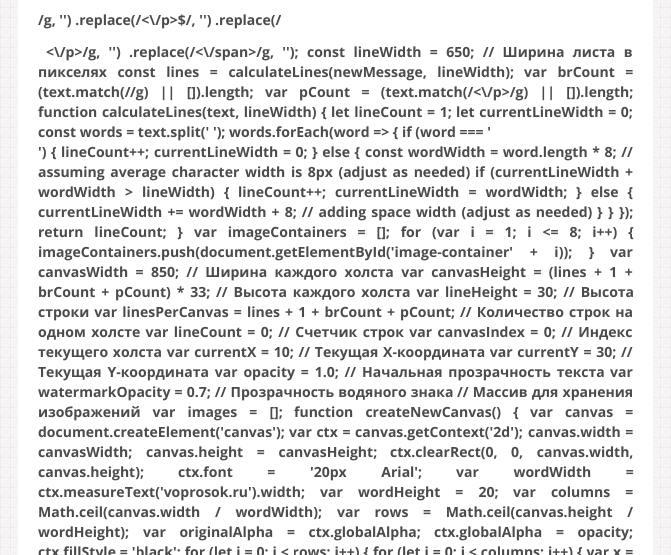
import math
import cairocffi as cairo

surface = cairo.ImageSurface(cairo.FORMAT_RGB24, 671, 555)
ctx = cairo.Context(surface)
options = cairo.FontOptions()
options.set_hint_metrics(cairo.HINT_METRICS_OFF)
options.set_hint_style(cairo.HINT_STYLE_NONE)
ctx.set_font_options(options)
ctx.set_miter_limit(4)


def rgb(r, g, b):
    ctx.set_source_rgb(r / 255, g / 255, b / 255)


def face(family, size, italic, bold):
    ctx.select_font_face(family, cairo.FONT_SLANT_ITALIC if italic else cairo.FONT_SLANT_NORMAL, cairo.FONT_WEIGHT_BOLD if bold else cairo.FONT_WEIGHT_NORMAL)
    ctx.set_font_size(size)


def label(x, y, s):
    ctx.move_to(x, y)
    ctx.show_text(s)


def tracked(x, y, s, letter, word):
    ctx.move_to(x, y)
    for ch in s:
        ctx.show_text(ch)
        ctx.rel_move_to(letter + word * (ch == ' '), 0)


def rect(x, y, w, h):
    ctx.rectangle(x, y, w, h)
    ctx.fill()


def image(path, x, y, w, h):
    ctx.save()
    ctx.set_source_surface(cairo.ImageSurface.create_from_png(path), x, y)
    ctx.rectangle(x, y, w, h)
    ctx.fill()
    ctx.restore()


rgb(255, 255, 255)
ctx.paint()
image('image0.png', 0, 0, 671, 555)
rgb(255, 255, 255)
rect(18, 0, 635, 555)
face('Open Sans', 14, 0, 1)
rgb(75, 75, 75)
label(38, 25, '/g, \'\') .replace(/<\\/p>$/, \'\') .replace(/')
tracked(46, 57, '<\\/p>/g, \'\')', 0, 4.75)
tracked(129, 57, '.replace(/<\\/span>/g, \'\');', 0, 4.75)
tracked(307, 57, 'const lineWidth = 650; // Ширина листа в', 0, 4.75)
tracked(38, 77, 'пикселях const lines = calculateLines(newMessage, lineWidth);', 0, 7)
tracked(524, 77, 'var brCount =', 0, 7)
label(38, 97, '(text.match(/')
tracked(130, 97, '/g) || []).length; var pCount = (text.match(/<\\/p>/g) || []).length;', 0, 7.75)
tracked(38, 117, 'function calculateLines(text, lineWidth) {', 0, 1)
tracked(331, 117, 'let lineCount = 1;', 0, 1)
tracked(456, 117, 'let currentLineWidth = 0;', 0, 1)
label(38, 137, 'const words = text.split(\' \'); words.forEach(word => { if (word === \'')
tracked(38, 157, '\') {', 0, 1)
label(61, 157, 'lineCount++;')
tracked(154, 157, 'currentLineWidth = 0;', 0, 1)
tracked(312, 157, '} else {', 0, 1)
tracked(365, 157, 'const wordWidth = word.length * 8; //', 0, 1)
tracked(38, 177, 'assuming average character width is 8px (adjust as needed)', 0, 2)
tracked(475, 177, 'if (currentLineWidth +', 0, 2)
tracked(38, 197, 'wordWidth > lineWidth) {', 0, 5.5)
label(238, 197, 'lineCount++;')
tracked(335, 197, 'currentLineWidth = wordWidth;', 0, 5.5)
tracked(576, 197, '} else {', 0, 5.5)
tracked(38, 217, 'currentLineWidth += wordWidth + 8; // adding space width (adjust as needed)', 0, 1.5)
label(597, 217, '}')
label(608, 217, '}')
label(619, 217, '});')
tracked(38, 237, 'return lineCount; }', 0, 7.25)
tracked(194, 237, 'var imageContainers = []; for (var i = 1; i <= 8; i++) {', 0, 7.25)
tracked(38, 257, 'imageContainers.push(document.getElementById(\'image-container\' + i)); }', 0, 13)
label(610, 257, 'var')
tracked(38, 277, 'canvasWidth = 850; // Ширина каждого холста var canvasHeight = (lines + 1 +', 0, 3.75)
tracked(38, 297, 'brCount + pCount) * 33; // Высота каждого холста var lineHeight = 30; // Высота', 0, 2.25)
tracked(38, 317, 'строки var linesPerCanvas = lines + 1 + brCount + pCount; // Количество строк на', 0, 1.5)
tracked(38, 337, 'одном холсте var lineCount = 0; // Счетчик строк var canvasIndex = 0; // Индекс', 0, 1.8)
tracked(38, 357, 'текущего холста var currentX = 10; // Текущая X-координата var currentY = 30; //', 0, 1.1)
tracked(38, 377, 'Текущая Y-координата var opacity = 1.0; // Начальная прозрачность текста', 0, 2.25)
label(610, 377, 'var')
tracked(38, 397, 'watermarkOpacity = 0.7; // Прозрачность водяного знака', 0, 0.5)
tracked(457, 397, '// Массив для хранения', 0, 0.5)
tracked(38, 417, 'изображений var images = [];', 0, 8.5)
tracked(294, 417, 'function createNewCanvas() {', 0, 8.5)
tracked(530, 417, 'var canvas =', 0, 8.5)
label(38, 437, 'document.createElement(\'canvas\');')
tracked(289, 437, 'var ctx = canvas.getContext(\'2d\');', 0, 1)
tracked(528, 437, 'canvas.width =', 0, 1)
label(38, 457, 'canvasWidth;')
tracked(146, 457, 'canvas.height = canvasHeight;', 0, 10)
tracked(390, 457, 'ctx.clearRect(0, 0, canvas.width,', 0, 10)
label(38, 477, 'canvas.height);')
tracked(178, 477, 'ctx.font = \'20px Arial\';', 0, 31)
tracked(456, 477, 'var wordWidth =', 0, 31)
label(38, 497, 'ctx.measureText(\'voprosok.ru\').width;')
tracked(320, 497, 'var wordHeight = 20;', 0, 11.5)
tracked(513, 497, 'var columns =', 0, 11.5)
tracked(38, 517, 'Math.ceil(canvas.width / wordWidth);', 0, 11)
tracked(337, 517, 'var rows = Math.ceil(canvas.height /', 0, 11)
label(38, 537, 'wordHeight);')
tracked(143, 537, 'var originalAlpha = ctx.globalAlpha;', 0, 10)
tracked(434, 537, 'ctx.globalAlpha = opacity;', 0, 10)
tracked(38, 557, 'ctx.fillStyle = \'black\'; for (let i = 0; i < rows; i++) { for (let j = 0; j < columns; j++) { var x =', 0, 0.3)
surface.write_to_png('render.png')
